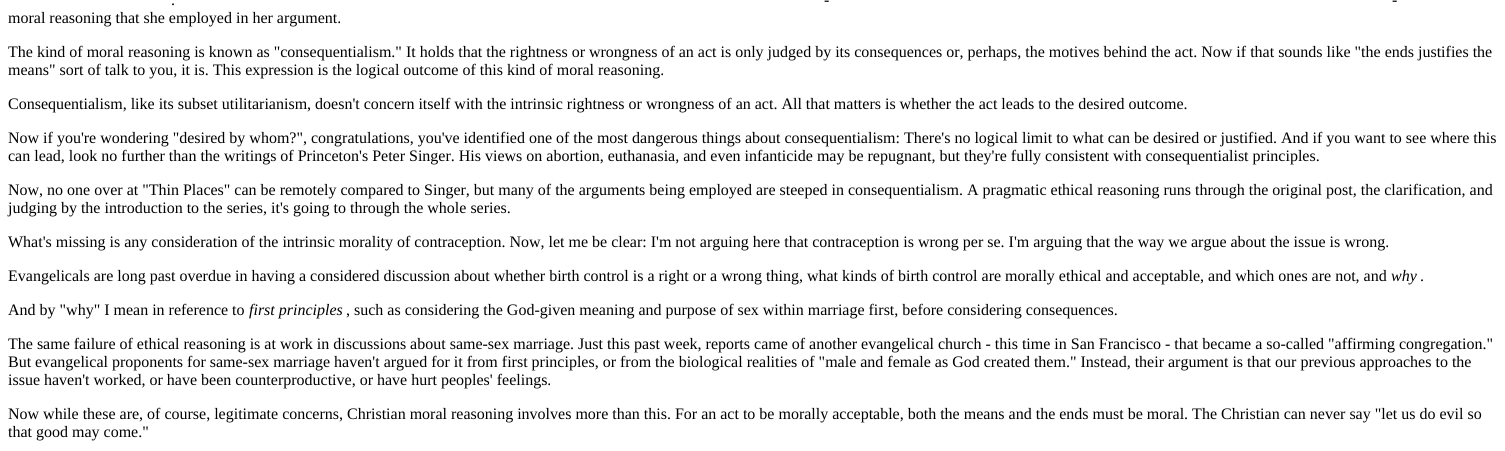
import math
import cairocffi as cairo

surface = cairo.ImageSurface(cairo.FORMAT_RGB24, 1505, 451)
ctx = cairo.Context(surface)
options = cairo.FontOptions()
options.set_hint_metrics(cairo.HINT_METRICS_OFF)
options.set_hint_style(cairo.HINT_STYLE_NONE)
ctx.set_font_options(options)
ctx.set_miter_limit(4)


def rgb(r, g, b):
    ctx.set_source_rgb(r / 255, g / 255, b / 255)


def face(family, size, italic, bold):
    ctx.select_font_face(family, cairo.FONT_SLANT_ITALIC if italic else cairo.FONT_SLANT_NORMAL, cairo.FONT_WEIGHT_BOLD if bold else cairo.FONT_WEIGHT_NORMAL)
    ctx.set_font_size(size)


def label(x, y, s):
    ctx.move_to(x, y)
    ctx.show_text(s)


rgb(255, 255, 255)
ctx.paint()
face('Liberation Serif', 16, 0, 0)
rgb(0, 0, 0)
label(824, 5, '-')
label(1392, 5, '-')
label(171, 5, '.')
label(8, 23, 'moral reasoning that she employed in her argument.')
label(8, 57, 'The kind of moral reasoning is known as "consequentialism." It holds that the rightness or wrongness of an act is only judged by its consequences or, perhaps, the motives behind the act. Now if that sounds like "the ends justifies the')
label(8, 75, 'means" sort of talk to you, it is. This expression is the logical outcome of this kind of moral reasoning.')
label(8, 109, 'Consequentialism, like its subset utilitarianism, doesn\'t concern itself with the intrinsic rightness or wrongness of an act. All that matters is whether the act leads to the desired outcome.')
label(8, 143, 'Now if you\'re wondering "desired by whom?", congratulations, you\'ve identified one of the most dangerous things about consequentialism: There\'s no logical limit to what can be desired or justified. And if you want to see where this')
label(8, 161, 'can lead, look no further than the writings of Princeton\'s Peter Singer. His views on abortion, euthanasia, and even infanticide may be repugnant, but they\'re fully consistent with consequentialist principles.')
label(8, 195, 'Now, no one over at "Thin Places" can be remotely compared to Singer, but many of the arguments being employed are steeped in consequentialism. A pragmatic ethical reasoning runs through the original post, the clarification, and')
label(8, 213, 'judging by the introduction to the series, it\'s going to through the whole series.')
label(8, 247, 'What\'s missing is any consideration of the intrinsic morality of contraception. Now, let me be clear: I\'m not arguing here that contraception is wrong per se. I\'m arguing that the way we argue about the issue is wrong.')
label(8, 281, 'Evangelicals are long past overdue in having a considered discussion about whether birth control is a right or a wrong thing, what kinds of birth control are morally ethical and acceptable, and which ones are not, and')
face('Liberation Serif', 16, 1, 0)
label(1391, 281, 'why')
face('Liberation Serif', 16, 0, 0)
label(1420, 281, '.')
label(8, 315, 'And by "why" I mean in reference to')
face('Liberation Serif', 16, 1, 0)
label(249, 315, 'first principles')
face('Liberation Serif', 16, 0, 0)
label(346, 315, ', such as considering the God-given meaning and purpose of sex within marriage first, before considering consequences.')
label(8, 349, 'The same failure of ethical reasoning is at work in discussions about same-sex marriage. Just this past week, reports came of another evangelical church - this time in San Francisco - that became a so-called "affirming congregation."')
label(8, 367, 'But evangelical proponents for same-sex marriage haven\'t argued for it from first principles, or from the biological realities of "male and female as God created them." Instead, their argument is that our previous approaches to the')
label(8, 385, 'issue haven\'t worked, or have been counterproductive, or have hurt peoples\' feelings.')
label(8, 419, 'Now while these are, of course, legitimate concerns, Christian moral reasoning involves more than this. For an act to be morally acceptable, both the means and the ends must be moral. The Christian can never say "let us do evil so')
label(8, 437, 'that good may come."')
surface.write_to_png('render.png')
